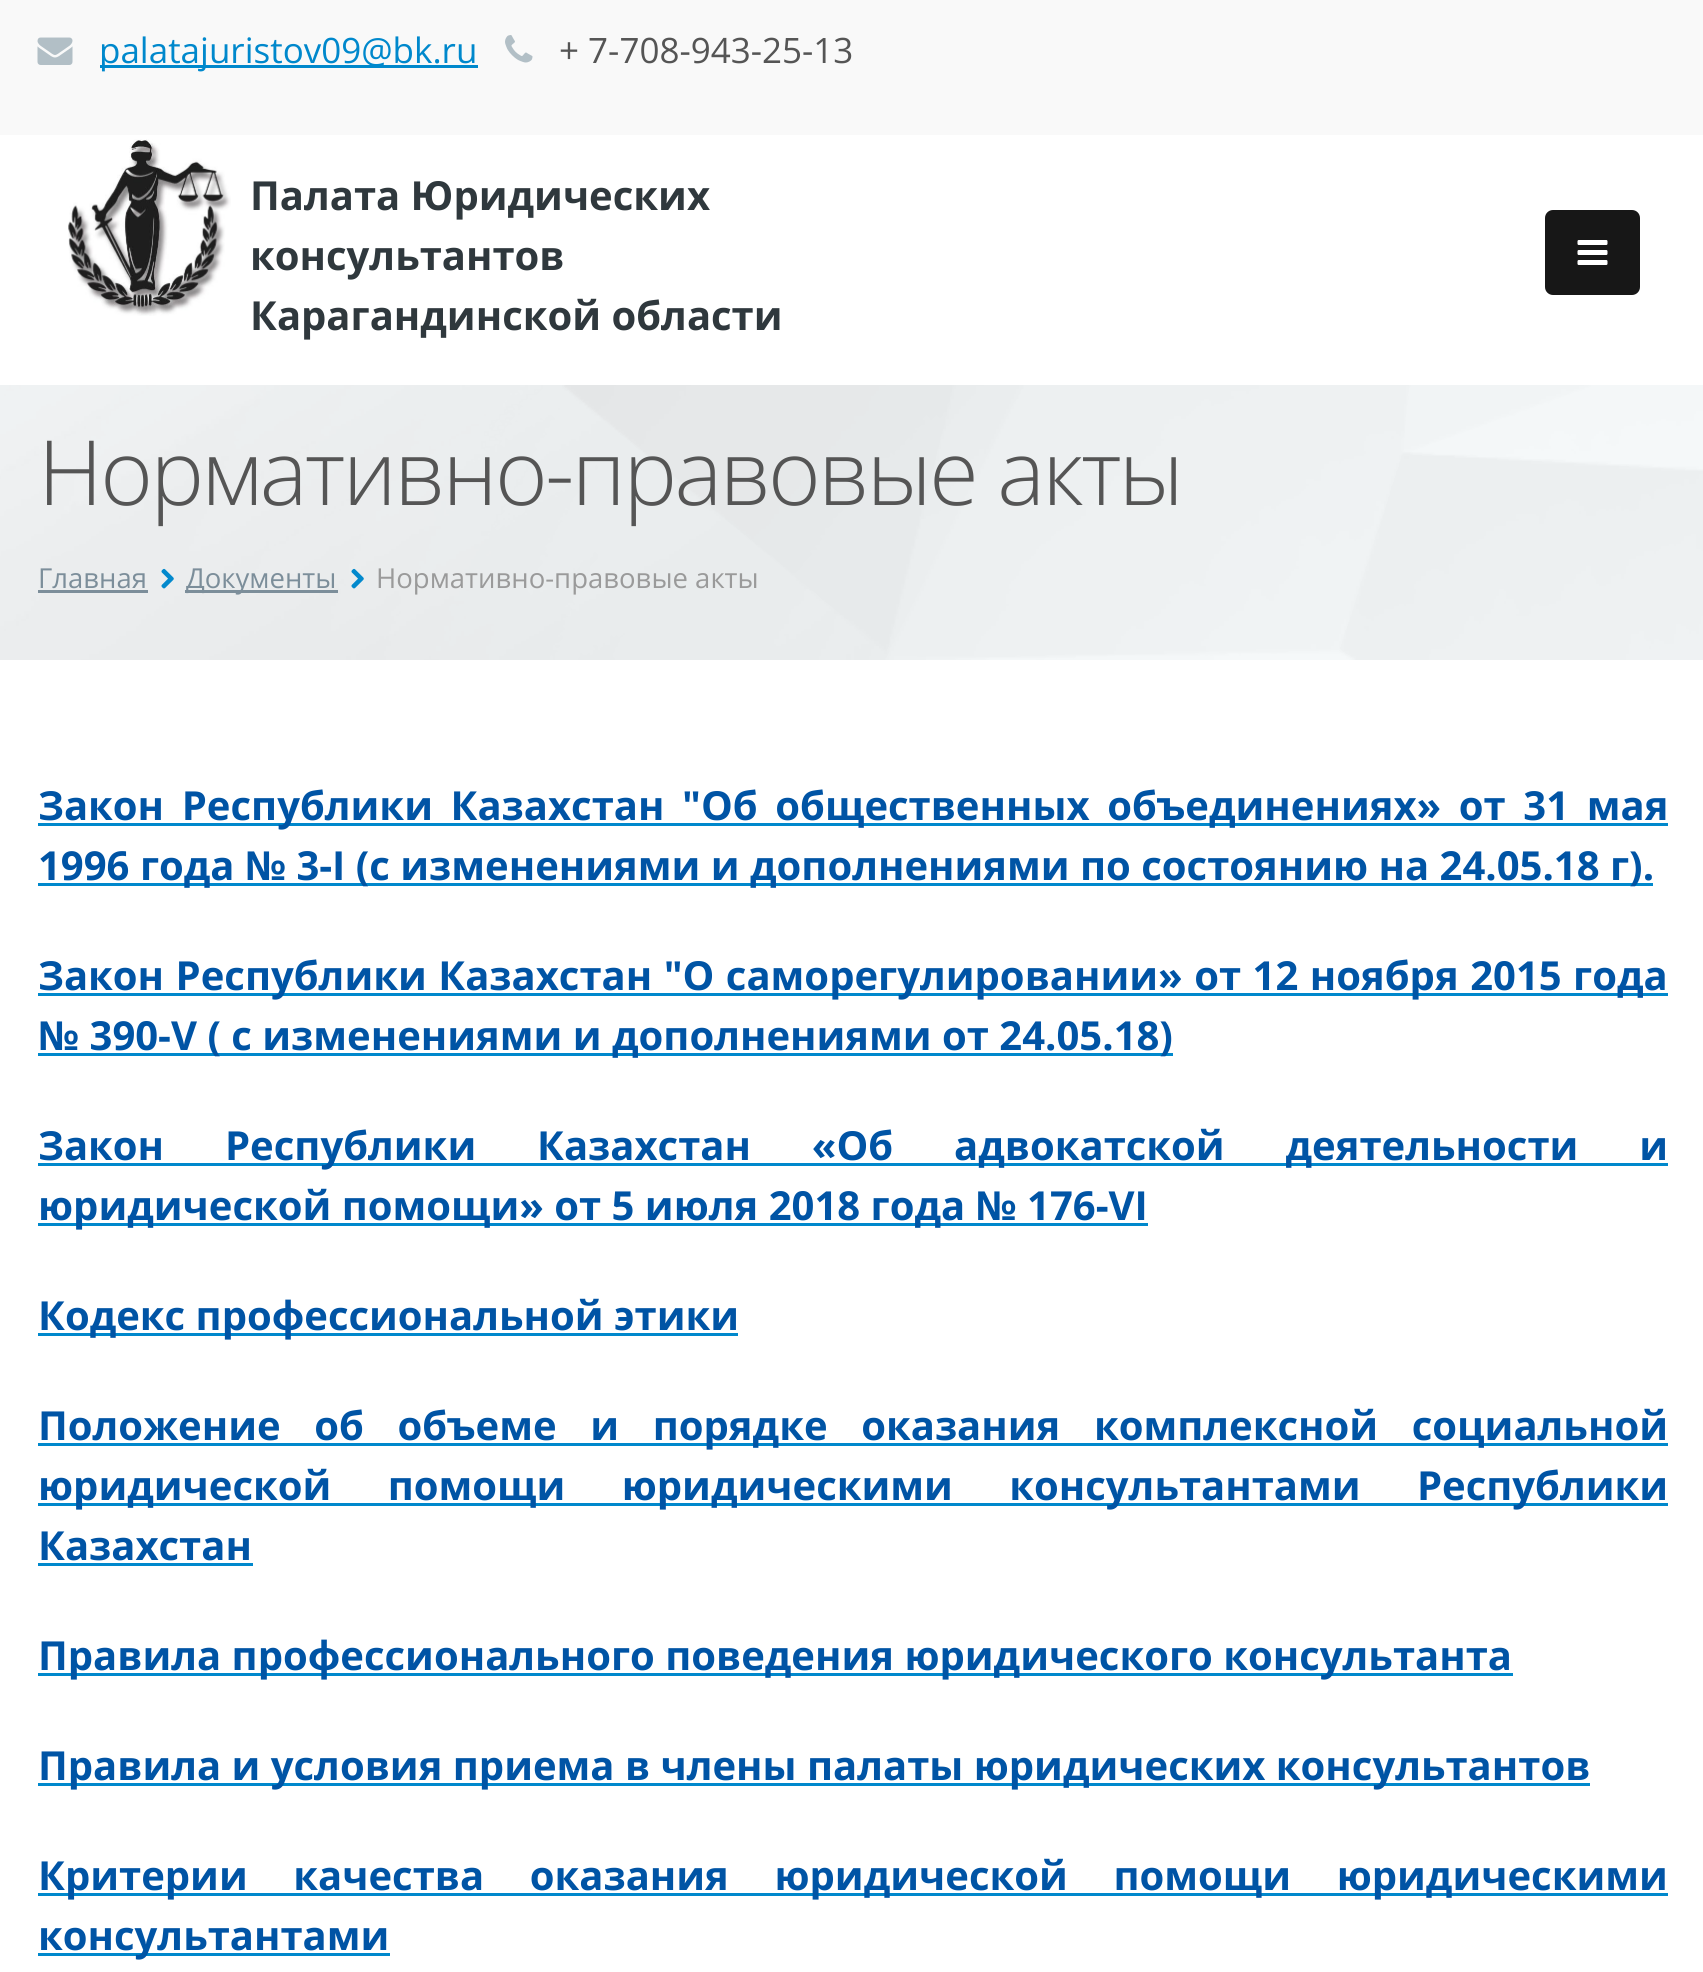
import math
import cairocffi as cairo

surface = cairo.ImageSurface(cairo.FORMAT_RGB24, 1703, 1972)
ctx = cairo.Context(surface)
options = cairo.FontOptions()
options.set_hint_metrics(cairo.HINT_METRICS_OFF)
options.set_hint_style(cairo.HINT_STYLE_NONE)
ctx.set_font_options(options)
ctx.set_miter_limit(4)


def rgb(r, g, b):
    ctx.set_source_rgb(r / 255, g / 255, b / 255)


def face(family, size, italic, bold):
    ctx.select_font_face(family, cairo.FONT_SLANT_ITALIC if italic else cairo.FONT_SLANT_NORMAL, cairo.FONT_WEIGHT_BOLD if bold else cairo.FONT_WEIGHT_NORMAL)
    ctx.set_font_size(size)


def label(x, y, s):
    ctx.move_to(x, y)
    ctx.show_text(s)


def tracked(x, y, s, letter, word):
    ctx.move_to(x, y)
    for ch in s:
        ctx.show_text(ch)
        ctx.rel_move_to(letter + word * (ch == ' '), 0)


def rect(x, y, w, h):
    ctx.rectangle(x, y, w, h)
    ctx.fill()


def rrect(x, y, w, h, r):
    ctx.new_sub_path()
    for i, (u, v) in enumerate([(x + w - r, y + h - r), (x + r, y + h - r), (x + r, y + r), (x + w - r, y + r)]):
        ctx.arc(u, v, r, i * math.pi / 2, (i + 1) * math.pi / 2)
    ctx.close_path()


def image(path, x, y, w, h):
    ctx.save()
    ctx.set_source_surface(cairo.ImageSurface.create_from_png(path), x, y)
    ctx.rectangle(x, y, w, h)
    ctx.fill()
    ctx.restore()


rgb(255, 255, 255)
ctx.paint()
rgb(249, 249, 249)
rect(0, 0, 1703, 135)
image('image0.png', 37, 37, 36, 28)
rgb(0, 136, 204)
rect(100, 65, 378, 3)
face('Open Sans', 35, 0, 0)
label(99, 63, 'palatajuristov09@bk.ru')
image('image1.png', 505, 35, 28, 28)
rgb(85, 85, 85)
label(559, 63, '+ 7-708-943-25-13')
image('image2.png', 68, 139, 163, 177)
face('Open Sans', 40, 0, 1)
rgb(47, 56, 61)
label(250, 210, 'Палата Юридических')
label(250, 270, 'консультантов')
label(250, 330, 'Карагандинской области')
rgb(23, 23, 23)
rrect(1545, 210, 95, 85, 8)
ctx.fill()
image('image3.png', 1577, 240, 31, 25)
rgb(248, 251, 252)
rect(0, 385, 1703, 275)
image('image4.png', 0, 385, 1703, 275)
face('Open Sans Light', 90, 0, 0)
rgb(85, 85, 85)
tracked(38, 505, 'Нормативно-правовые акты', -2.5, 0)
face('Open Sans', 27.5, 0, 0)
rgb(124, 142, 154)
label(38, 588, 'Главная')
rect(38, 590, 110, 3)
image('image5.png', 161, 568, 13, 21)
rect(185, 590, 153, 3)
label(186, 588, 'Документы')
image('image6.png', 351, 568, 13, 21)
rgb(154, 154, 154)
label(376, 588, 'Нормативно-правовые акты')
rgb(0, 136, 204)
rect(38, 823, 1630, 3)
face('Open Sans', 40, 0, 1)
rgb(0, 84, 165)
tracked(38, 820, 'Закон Республики Казахстан "Об общественных объединениях» от 31 мая', 0, 7.25)
rgb(0, 136, 204)
rect(38, 883, 1615, 3)
rgb(0, 84, 165)
label(38, 880, '1996 года № 3-I (с изменениями и дополнениями по состоянию на 24.05.18 г).')
rgb(0, 136, 204)
rect(38, 993, 1630, 3)
rgb(0, 84, 165)
tracked(38, 990, 'Закон Республики Казахстан "О саморегулировании» от 12 ноября 2015 года', 0, 1.1)
rgb(0, 136, 204)
rect(38, 1053, 1135, 3)
rgb(0, 84, 165)
label(38, 1050, '№ 390-V ( с изменениями и дополнениями от 24.05.18)')
rgb(0, 136, 204)
rect(38, 1163, 1630, 3)
rgb(0, 84, 165)
tracked(38, 1160, 'Закон Республики Казахстан «Об адвокатской деятельности и', 0, 50.5)
rgb(0, 136, 204)
rect(38, 1223, 1110, 3)
rgb(0, 84, 165)
label(38, 1220, 'юридической помощи» от 5 июля 2018 года № 176-VI')
rgb(0, 136, 204)
rect(38, 1333, 700, 3)
rgb(0, 84, 165)
label(38, 1330, 'Кодекс профессиональной этики')
rgb(0, 136, 204)
rect(38, 1443, 1630, 3)
rgb(0, 84, 165)
tracked(38, 1440, 'Положение об объеме и порядке оказания комплексной социальной', 0, 23.25)
rgb(0, 136, 204)
rect(38, 1503, 1630, 3)
rgb(0, 84, 165)
tracked(38, 1500, 'юридической помощи юридическими консультантами Республики', 0, 46)
label(38, 1560, 'Казахстан')
rgb(0, 136, 204)
rect(38, 1563, 215, 3)
rect(38, 1673, 1475, 3)
rgb(0, 84, 165)
label(38, 1670, 'Правила профессионального поведения юридического консультанта')
rgb(0, 136, 204)
rect(38, 1783, 1552, 3)
rgb(0, 84, 165)
label(38, 1780, 'Правила и условия приема в члены палаты юридических консультантов')
rgb(0, 136, 204)
rect(38, 1893, 1630, 3)
rgb(0, 84, 165)
tracked(38, 1890, 'Критерии качества оказания юридической помощи юридическими', 0, 35.25)
rgb(0, 136, 204)
rect(38, 1953, 352, 3)
rgb(0, 84, 165)
label(38, 1950, 'консультантами')
surface.write_to_png('render.png')
